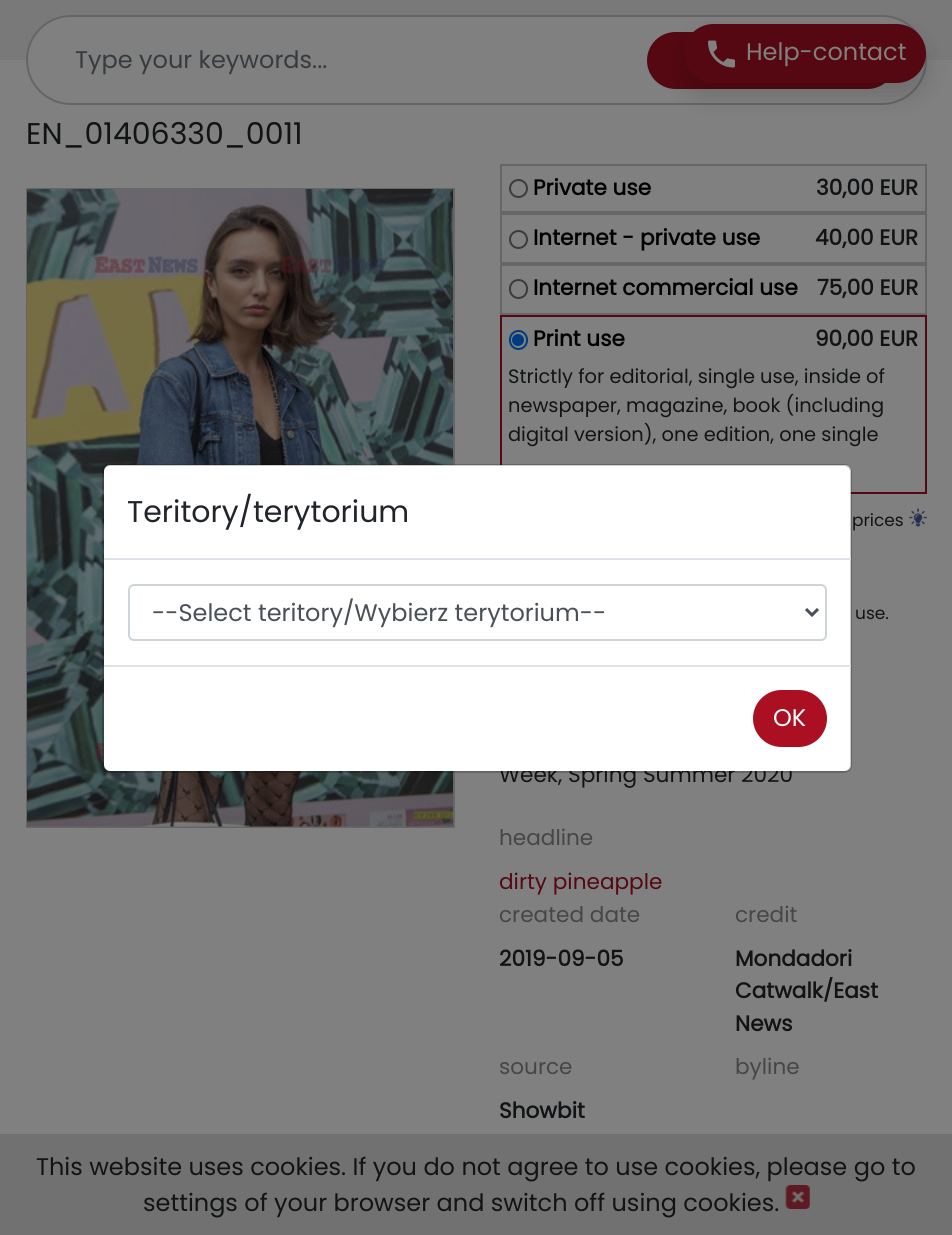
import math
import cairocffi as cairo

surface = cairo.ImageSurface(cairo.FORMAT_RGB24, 952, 1235)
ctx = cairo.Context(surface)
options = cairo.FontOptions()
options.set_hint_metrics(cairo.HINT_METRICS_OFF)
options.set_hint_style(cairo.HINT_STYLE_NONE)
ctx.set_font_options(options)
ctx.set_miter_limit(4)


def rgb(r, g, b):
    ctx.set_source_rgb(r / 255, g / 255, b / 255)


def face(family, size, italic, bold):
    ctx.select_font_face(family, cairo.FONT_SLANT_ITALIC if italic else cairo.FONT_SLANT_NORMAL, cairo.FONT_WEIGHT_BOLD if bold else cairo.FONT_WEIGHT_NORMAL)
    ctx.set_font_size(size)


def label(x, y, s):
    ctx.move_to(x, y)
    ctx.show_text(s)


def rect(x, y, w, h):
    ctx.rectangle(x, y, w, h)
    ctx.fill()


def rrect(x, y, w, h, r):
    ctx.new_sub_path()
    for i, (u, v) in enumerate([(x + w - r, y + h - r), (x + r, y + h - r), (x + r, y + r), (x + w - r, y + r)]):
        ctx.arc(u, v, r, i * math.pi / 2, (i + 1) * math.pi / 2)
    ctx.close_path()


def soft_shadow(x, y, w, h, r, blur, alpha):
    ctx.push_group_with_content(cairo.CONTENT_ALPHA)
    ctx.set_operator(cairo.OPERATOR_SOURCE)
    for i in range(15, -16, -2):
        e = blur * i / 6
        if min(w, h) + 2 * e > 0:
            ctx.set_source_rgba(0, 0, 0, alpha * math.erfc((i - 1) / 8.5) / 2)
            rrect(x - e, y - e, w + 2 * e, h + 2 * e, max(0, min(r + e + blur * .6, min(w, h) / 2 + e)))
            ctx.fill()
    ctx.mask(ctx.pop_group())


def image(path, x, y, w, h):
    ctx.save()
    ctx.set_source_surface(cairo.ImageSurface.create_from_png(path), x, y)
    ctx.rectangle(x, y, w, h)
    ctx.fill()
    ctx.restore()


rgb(128, 128, 128)
ctx.paint()
rgb(121, 121, 121)
rect(0, 0, 952, 60)
rgb(128, 128, 128)
rrect(27, 16, 899, 88, 44)
ctx.fill_preserve()
rgb(101, 101, 101)
ctx.stroke()
face('Poppins', 24, 0, 0)
rgb(54, 59, 63)
label(75, 68, 'Type your keywords...')
rgb(85, 8, 17)
rrect(648, 33, 247, 55, 27.5)
ctx.fill_preserve()
ctx.stroke()
rgb(0, 0, 0)
soft_shadow(684, 36, 242, 59, 29.5, 12, 0.15)
rgb(85, 8, 17)
rrect(685, 25, 240, 57, 28.5)
ctx.fill_preserve()
ctx.stroke()
image('image0.png', 708, 40, 27, 28)
rgb(128, 128, 128)
label(746, 60, 'Help-contact')
face('Poppins', 30, 0, 0)
rgb(17, 19, 21)
label(26, 144, 'EN_01406330_0011')
ctx.rectangle(27, 189, 427, 638)
rgb(102, 102, 102)
ctx.stroke()
image('image1.png', 27, 189, 426, 638)
ctx.rectangle(501, 165, 425, 47)
ctx.stroke()
ctx.arc(518.5, 188.5, 8.5, 0, 2 * math.pi)
rgb(59, 59, 59)
ctx.stroke()
face('Poppins', 21.6, 0, 1)
rgb(0, 0, 0)
label(533, 195, 'Private use')
rgb(17, 19, 21)
label(816, 195, '30,00 EUR')
ctx.rectangle(501, 214, 425, 49)
rgb(102, 102, 102)
ctx.stroke()
ctx.arc(518.5, 239.5, 8.5, 0, 2 * math.pi)
rgb(59, 59, 59)
ctx.stroke()
rgb(0, 0, 0)
label(533, 245, 'Internet - private use')
rgb(17, 19, 21)
label(815, 245, '40,00 EUR')
ctx.rectangle(501, 265, 425, 49)
rgb(102, 102, 102)
ctx.stroke()
rrect(510, 280, 17, 18, 8.5)
rgb(59, 59, 59)
ctx.stroke()
rgb(0, 0, 0)
label(533, 295, 'Internet commercial use')
rgb(17, 19, 21)
label(817, 295, '75,00 EUR')
ctx.rectangle(501, 316, 425, 177)
rgb(85, 8, 17)
ctx.stroke()
rrect(510, 331, 17, 18, 8.5)
rgb(0, 59, 128)
ctx.stroke()
ctx.arc(518, 340, 6, 0, 2 * math.pi)
ctx.fill()
rgb(0, 0, 0)
label(533, 346, 'Print use')
rgb(17, 19, 21)
label(815, 346, '90,00 EUR')
face('Poppins', 19.4, 0, 0)
label(508, 383, 'Strictly for editorial, single use, inside of')
label(508, 412, 'newspaper, magazine, book (including')
label(508, 441, 'digital version), one edition, one single')
face('Poppins', 17, 0, 0)
label(852, 526, 'prices')
image('image2.png', 909, 508, 18, 19)
label(855, 619, 'use.')
face('Poppins', 21.6, 0, 0)
label(499, 782, 'Week, Spring Summer 2020')
rgb(70, 70, 70)
label(499, 845, 'headline')
rgb(85, 8, 17)
label(499, 889, 'dirty pineapple')
rgb(70, 70, 70)
label(499, 922, 'created date')
face('Poppins', 21.6, 0, 1)
rgb(17, 19, 21)
label(499, 966, '2019-09-05')
face('Poppins', 21.6, 0, 0)
rgb(70, 70, 70)
label(735, 922, 'credit')
face('Poppins', 21.6, 0, 1)
rgb(17, 19, 21)
label(735, 966, 'Mondadori')
label(735, 998, 'Catwalk/East')
label(735, 1031, 'News')
face('Poppins', 21.6, 0, 0)
rgb(70, 70, 70)
label(499, 1074, 'source')
face('Poppins', 21.6, 0, 1)
rgb(17, 19, 21)
label(499, 1118, 'Showbit')
face('Poppins', 21.6, 0, 0)
rgb(70, 70, 70)
label(735, 1074, 'byline')
rgb(255, 255, 255)
rrect(104, 465, 747, 306, 6)
ctx.fill()
rrect(103, 465, 748, 307, 7)
ctx.set_source_rgba(0, 0, 0, 0.2)
ctx.stroke()
rgb(222, 226, 230)
rect(104, 558, 747, 2)
face('Poppins', 30, 0, 0)
rgb(33, 37, 41)
label(127, 522, 'Teritory/terytorium')
rrect(129, 585, 697, 55, 5)
rgb(206, 212, 218)
ctx.stroke()
ctx.new_path()
ctx.move_to(806, 609)
ctx.line_to(812, 615)
ctx.line_to(818, 609)
rgb(73, 80, 87)
ctx.set_line_width(3)
ctx.stroke()
face('Poppins', 24, 0, 0)
label(152, 621, '--Select teritory/Wybierz terytorium--')
rgb(222, 226, 230)
rect(104, 665, 747, 2)
rgb(170, 16, 33)
rrect(754, 691, 72, 55, 27.5)
ctx.fill_preserve()
ctx.set_line_width(2)
ctx.stroke()
rgb(255, 255, 255)
label(773, 726, 'OK')
rgb(113, 113, 113)
rect(0, 1134, 952, 101)
rgb(17, 19, 21)
label(36, 1175, 'This website uses cookies. If you do not agree to use cookies, please go to')
label(143, 1211, 'settings of your browser and switch off using cookies.')
image('image3.png', 785, 1185, 25, 24)
surface.write_to_png('render.png')
